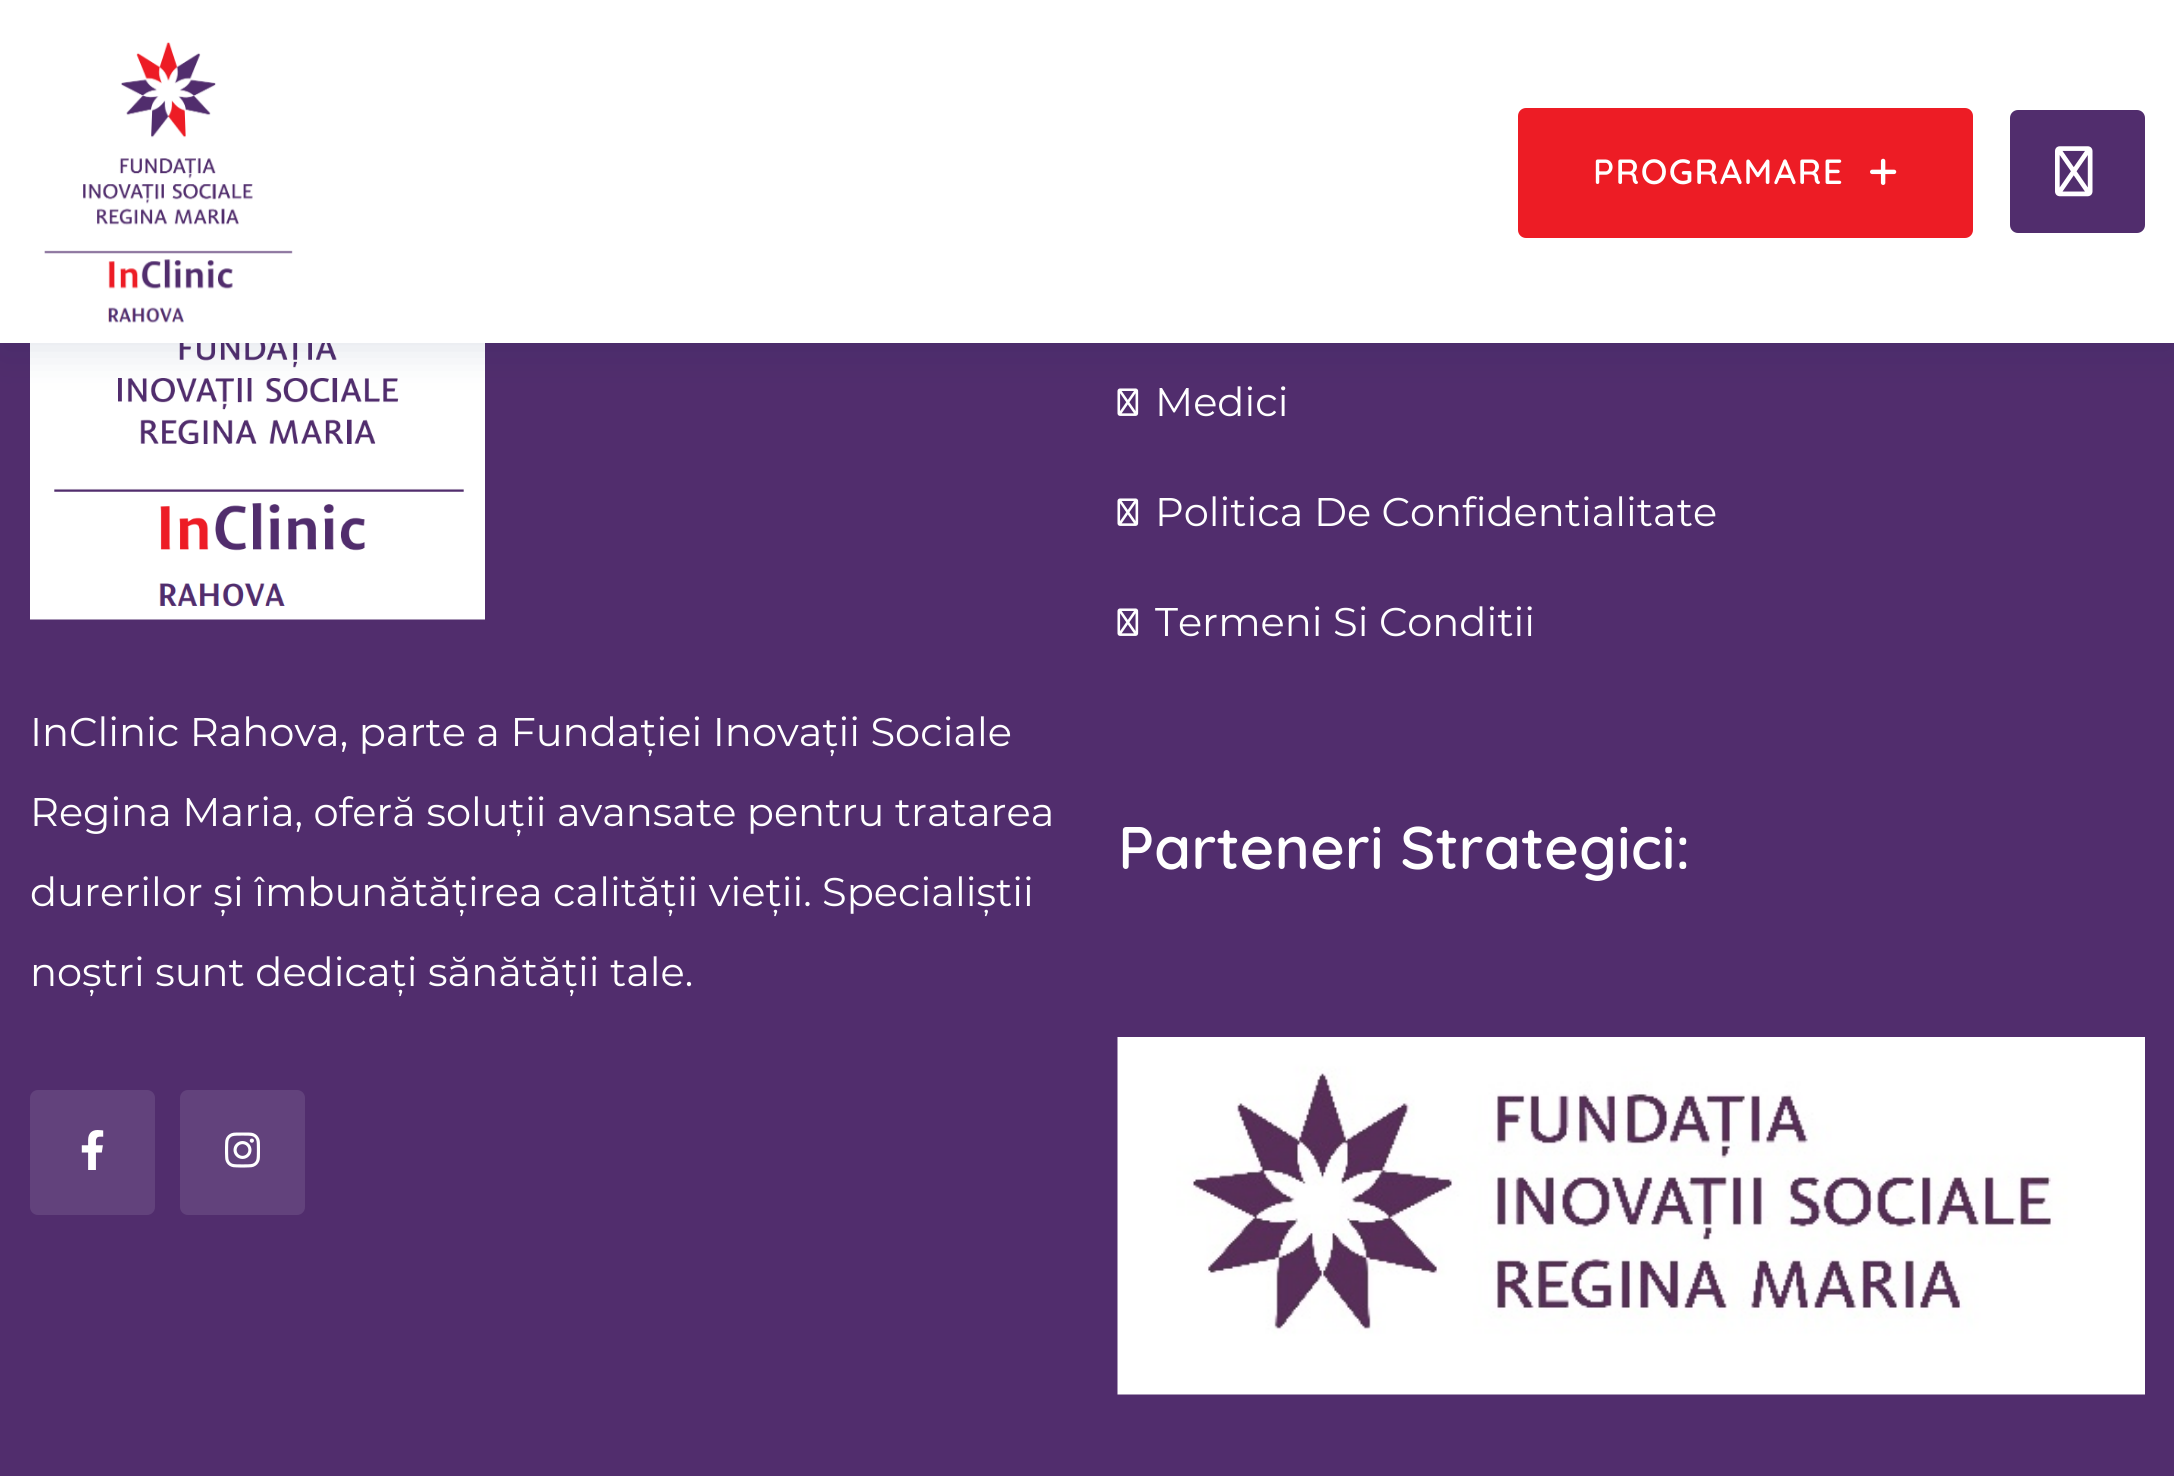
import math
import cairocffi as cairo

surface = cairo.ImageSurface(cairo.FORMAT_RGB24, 2174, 1476)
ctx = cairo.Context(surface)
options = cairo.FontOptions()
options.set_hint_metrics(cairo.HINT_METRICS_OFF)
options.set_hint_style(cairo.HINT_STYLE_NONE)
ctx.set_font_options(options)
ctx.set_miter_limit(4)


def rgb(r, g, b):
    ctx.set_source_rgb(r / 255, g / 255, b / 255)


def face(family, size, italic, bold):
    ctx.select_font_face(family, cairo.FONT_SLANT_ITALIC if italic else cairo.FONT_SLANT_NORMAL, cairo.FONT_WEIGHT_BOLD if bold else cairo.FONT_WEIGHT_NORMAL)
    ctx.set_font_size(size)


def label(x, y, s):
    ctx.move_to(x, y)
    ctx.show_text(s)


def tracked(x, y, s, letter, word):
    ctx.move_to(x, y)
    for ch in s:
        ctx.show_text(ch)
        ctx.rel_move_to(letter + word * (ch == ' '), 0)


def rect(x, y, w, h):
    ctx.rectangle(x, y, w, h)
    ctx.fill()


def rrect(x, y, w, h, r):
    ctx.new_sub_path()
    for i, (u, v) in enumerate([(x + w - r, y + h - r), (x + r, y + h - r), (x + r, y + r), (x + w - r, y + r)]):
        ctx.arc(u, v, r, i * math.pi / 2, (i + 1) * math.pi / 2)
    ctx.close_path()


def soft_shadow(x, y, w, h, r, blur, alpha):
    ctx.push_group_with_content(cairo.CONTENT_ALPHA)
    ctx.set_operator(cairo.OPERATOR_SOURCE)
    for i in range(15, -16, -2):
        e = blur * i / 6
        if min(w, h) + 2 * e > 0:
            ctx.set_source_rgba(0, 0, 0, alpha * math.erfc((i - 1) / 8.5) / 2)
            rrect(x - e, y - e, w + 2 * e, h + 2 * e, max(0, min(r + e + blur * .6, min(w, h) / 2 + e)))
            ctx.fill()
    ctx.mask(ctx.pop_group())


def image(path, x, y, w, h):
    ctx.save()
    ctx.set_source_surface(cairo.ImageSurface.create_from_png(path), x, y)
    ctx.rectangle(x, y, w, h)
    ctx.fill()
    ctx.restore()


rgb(81, 45, 109)
ctx.paint()
image('image3.png', 30, 343, 455, 277)
image('image6.png', 1117, 388, 22, 28)
rgb(0, 33, 85)
soft_shadow(0, 13, 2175, 342, 0, 19, 0.1)
rgb(255, 255, 255)
rect(0, 0, 2174, 343)
image('image0.png', 44, 42, 249, 281)
rgb(237, 28, 37)
rrect(1518, 108, 455, 130, 8)
ctx.fill()
face('Quicksand SemiBold', 35, 0, 0)
rgb(255, 255, 255)
tracked(1593, 184, 'PROGRAMARE', 1.4, 0)
image('image1.png', 1870, 158, 27, 27)
rgb(81, 45, 109)
rrect(2010, 110, 135, 123, 8)
ctx.fill()
image('image2.png', 2055, 146, 38, 51)
face('Montserrat', 40, 0, 0)
rgb(255, 255, 255)
label(30, 746, 'InClinic Rahova, parte a Fundației Inovații Sociale')
label(30, 826, 'Regina Maria, oferă soluții avansate pentru tratarea')
label(30, 906, 'durerilor și îmbunătățirea calității vieții. Specialiștii')
label(30, 986, 'noștri sunt dedicați sănătății tale.')
rgb(98, 66, 124)
rrect(30, 1090, 125, 125, 8)
ctx.fill()
image('image4.png', 81, 1130, 23, 40)
rrect(180, 1090, 125, 125, 8)
ctx.fill()
image('image5.png', 225, 1132, 35, 36)
rgb(255, 255, 255)
label(1155, 416, 'Medici')
image('image6.png', 1117, 498, 22, 28)
label(1155, 526, 'Politica De Confidentialitate')
image('image6.png', 1117, 608, 22, 28)
label(1155, 636, 'Termeni Si Conditii')
face('Quicksand SemiBold', 60, 0, 0)
label(1118, 869, 'Parteneri Strategici:')
image('image7.png', 1117, 1037, 1028, 358)
surface.write_to_png('render.png')
